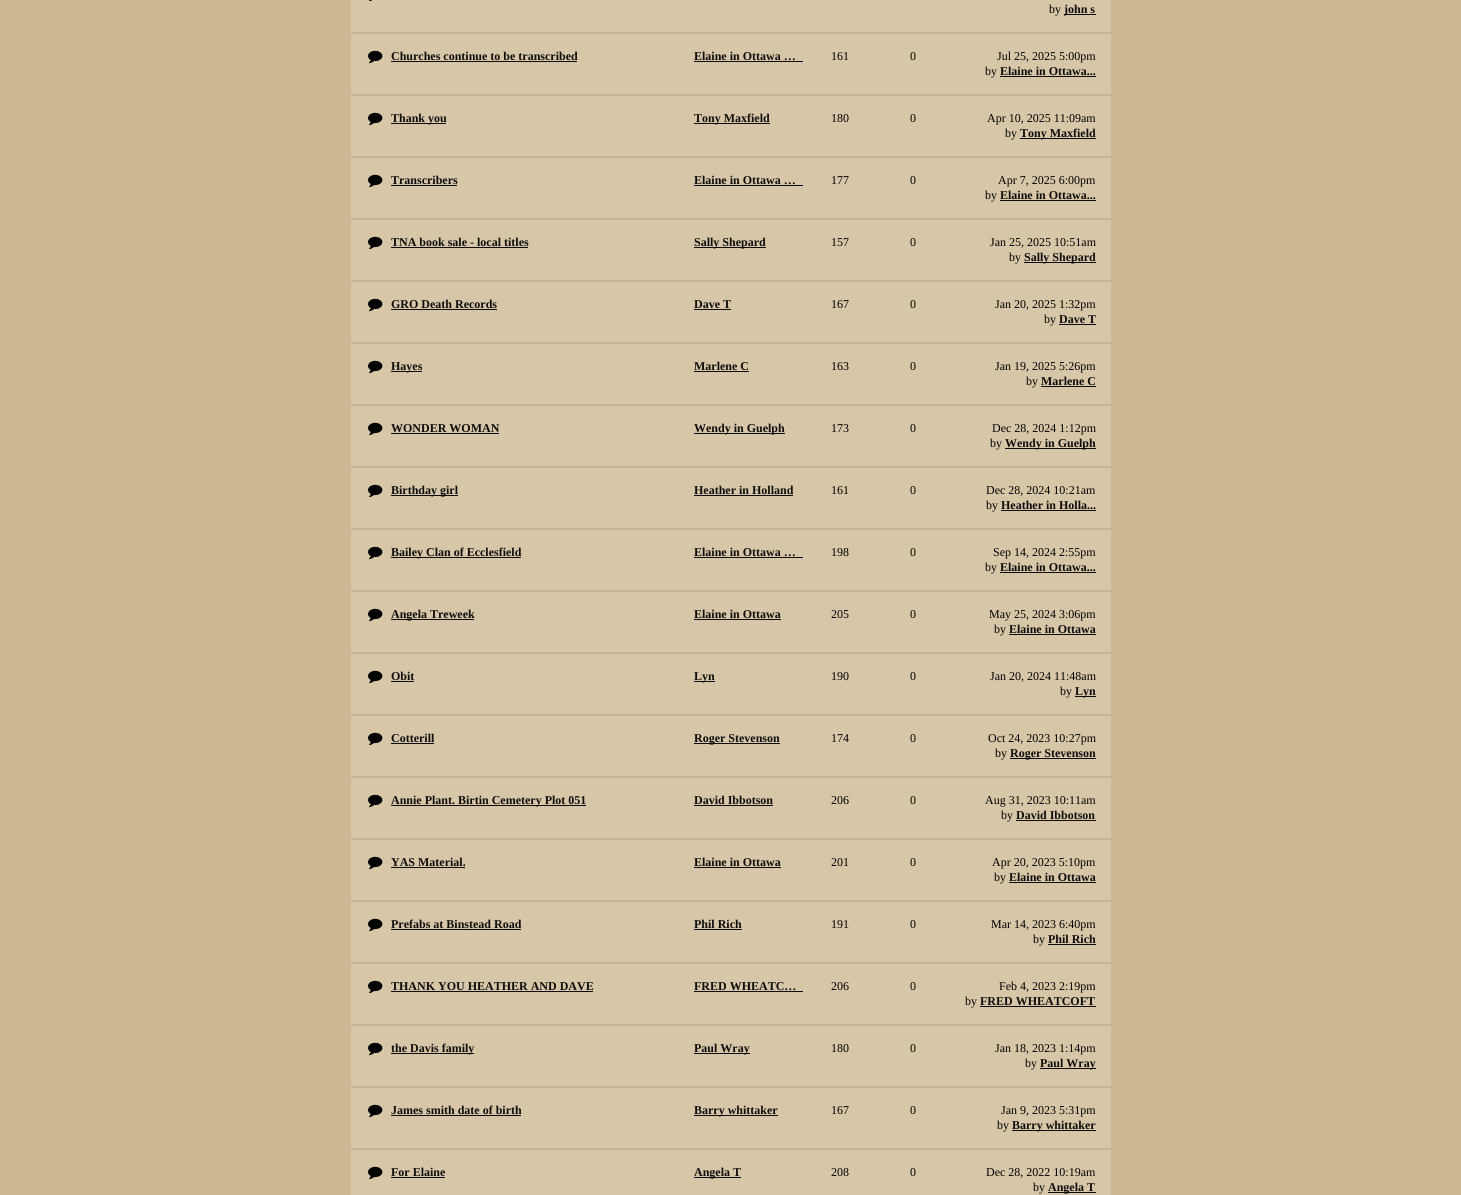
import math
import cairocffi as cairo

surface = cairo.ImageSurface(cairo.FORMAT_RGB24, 1461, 1195)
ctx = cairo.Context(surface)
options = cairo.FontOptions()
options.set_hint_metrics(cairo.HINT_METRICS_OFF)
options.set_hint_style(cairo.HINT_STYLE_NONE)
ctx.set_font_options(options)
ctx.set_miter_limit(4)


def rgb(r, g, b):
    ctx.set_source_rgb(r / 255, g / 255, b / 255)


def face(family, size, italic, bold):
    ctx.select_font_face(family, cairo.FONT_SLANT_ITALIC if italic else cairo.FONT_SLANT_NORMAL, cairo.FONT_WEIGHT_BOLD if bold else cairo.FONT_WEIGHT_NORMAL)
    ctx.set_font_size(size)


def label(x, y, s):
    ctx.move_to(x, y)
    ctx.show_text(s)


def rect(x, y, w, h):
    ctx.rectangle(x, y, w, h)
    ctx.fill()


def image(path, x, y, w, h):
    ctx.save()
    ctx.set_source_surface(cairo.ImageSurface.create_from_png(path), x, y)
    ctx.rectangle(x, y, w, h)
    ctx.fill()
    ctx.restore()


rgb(204, 185, 147)
ctx.paint()
rgb(215, 199, 168)
rect(351, 0, 760, 32)
rgb(194, 179, 151)
rect(351, 32, 760, 2)
image('image0.png', 369, 0, 4, 2)
face('Liberation Serif', 12, 0, 0)
rgb(0, 0, 0)
label(1049, 13, 'by')
rgb(13, 13, 12)
rect(1064, 14, 32, 1)
face('Liberation Serif', 12, 0, 1)
label(1064, 13, 'john s')
rgb(215, 199, 168)
rect(351, 34, 760, 60)
rgb(194, 179, 151)
rect(351, 94, 760, 2)
image('image1.png', 368, 50, 15, 14)
rgb(13, 13, 12)
label(391, 60, 'Churches continue to be transcribed')
rect(391, 61, 186, 1)
label(694, 60, 'Elaine in Ottawa …')
rect(694, 61, 109, 1)
face('Liberation Serif', 12, 0, 0)
rgb(0, 0, 0)
label(831, 60, '161')
label(910, 60, '0')
label(997, 60, 'Jul 25, 2025 5:00pm')
label(985, 75, 'by')
face('Liberation Serif', 12, 0, 1)
rgb(13, 13, 12)
label(1000, 75, 'Elaine in Ottawa...')
rect(1000, 76, 96, 1)
rgb(215, 199, 168)
rect(351, 96, 760, 60)
rgb(194, 179, 151)
rect(351, 156, 760, 2)
image('image1.png', 368, 112, 15, 14)
rgb(13, 13, 12)
rect(391, 123, 55, 1)
label(391, 122, 'Thank you')
rect(694, 123, 76, 1)
label(694, 122, 'Tony Maxfield')
face('Liberation Serif', 12, 0, 0)
rgb(0, 0, 0)
label(831, 122, '180')
label(910, 122, '0')
label(987, 122, 'Apr 10, 2025 11:09am')
label(1005, 137, 'by')
rgb(13, 13, 12)
rect(1020, 138, 76, 1)
face('Liberation Serif', 12, 0, 1)
label(1020, 137, 'Tony Maxfield')
rgb(215, 199, 168)
rect(351, 158, 760, 60)
rgb(194, 179, 151)
rect(351, 218, 760, 2)
image('image1.png', 368, 174, 15, 14)
rgb(13, 13, 12)
label(391, 184, 'Transcribers')
rect(391, 185, 66, 1)
label(694, 184, 'Elaine in Ottawa …')
rect(694, 185, 109, 1)
face('Liberation Serif', 12, 0, 0)
rgb(0, 0, 0)
label(831, 184, '177')
label(910, 184, '0')
label(998, 184, 'Apr 7, 2025 6:00pm')
label(985, 199, 'by')
face('Liberation Serif', 12, 0, 1)
rgb(13, 13, 12)
label(1000, 199, 'Elaine in Ottawa...')
rect(1000, 200, 96, 1)
rgb(215, 199, 168)
rect(351, 220, 760, 60)
rgb(194, 179, 151)
rect(351, 280, 760, 2)
image('image1.png', 368, 236, 15, 14)
rgb(13, 13, 12)
label(391, 246, 'TNA book sale - local titles')
rect(391, 247, 137, 1)
rect(694, 247, 72, 1)
label(694, 246, 'Sally Shepard')
face('Liberation Serif', 12, 0, 0)
rgb(0, 0, 0)
label(831, 246, '157')
label(910, 246, '0')
label(990, 246, 'Jan 25, 2025 10:51am')
label(1009, 261, 'by')
rgb(13, 13, 12)
rect(1024, 262, 72, 1)
face('Liberation Serif', 12, 0, 1)
label(1024, 261, 'Sally Shepard')
rgb(215, 199, 168)
rect(351, 282, 760, 60)
rgb(194, 179, 151)
rect(351, 342, 760, 2)
image('image1.png', 368, 298, 15, 14)
rgb(13, 13, 12)
label(391, 308, 'GRO Death Records')
rect(391, 309, 106, 1)
label(694, 308, 'Dave T')
rect(694, 309, 37, 1)
face('Liberation Serif', 12, 0, 0)
rgb(0, 0, 0)
label(831, 308, '167')
label(910, 308, '0')
label(995, 308, 'Jan 20, 2025 1:32pm')
label(1044, 323, 'by')
face('Liberation Serif', 12, 0, 1)
rgb(13, 13, 12)
label(1059, 323, 'Dave T')
rect(1059, 324, 37, 1)
rgb(215, 199, 168)
rect(351, 344, 760, 60)
rgb(194, 179, 151)
rect(351, 404, 760, 2)
image('image1.png', 368, 360, 15, 14)
rgb(13, 13, 12)
rect(391, 371, 31, 1)
label(391, 370, 'Hayes')
label(694, 370, 'Marlene C')
rect(694, 371, 55, 1)
face('Liberation Serif', 12, 0, 0)
rgb(0, 0, 0)
label(831, 370, '163')
label(910, 370, '0')
label(995, 370, 'Jan 19, 2025 5:26pm')
label(1026, 385, 'by')
face('Liberation Serif', 12, 0, 1)
rgb(13, 13, 12)
label(1041, 385, 'Marlene C')
rect(1041, 386, 55, 1)
rgb(215, 199, 168)
rect(351, 406, 760, 60)
rgb(194, 179, 151)
rect(351, 466, 760, 2)
image('image1.png', 368, 422, 15, 14)
rgb(13, 13, 12)
label(391, 432, 'WONDER WOMAN')
rect(391, 433, 108, 1)
rect(694, 433, 91, 1)
label(694, 432, 'Wendy in Guelph')
face('Liberation Serif', 12, 0, 0)
rgb(0, 0, 0)
label(831, 432, '173')
label(910, 432, '0')
label(992, 432, 'Dec 28, 2024 1:12pm')
label(990, 447, 'by')
rgb(13, 13, 12)
rect(1005, 448, 91, 1)
face('Liberation Serif', 12, 0, 1)
label(1005, 447, 'Wendy in Guelph')
rgb(215, 199, 168)
rect(351, 468, 760, 60)
rgb(194, 179, 151)
rect(351, 528, 760, 2)
image('image1.png', 368, 484, 15, 14)
rgb(13, 13, 12)
rect(391, 495, 67, 1)
label(391, 494, 'Birthday girl')
label(694, 494, 'Heather in Holland')
rect(694, 495, 99, 1)
face('Liberation Serif', 12, 0, 0)
rgb(0, 0, 0)
label(831, 494, '161')
label(910, 494, '0')
label(986, 494, 'Dec 28, 2024 10:21am')
label(986, 509, 'by')
face('Liberation Serif', 12, 0, 1)
rgb(13, 13, 12)
label(1001, 509, 'Heather in Holla...')
rect(1001, 510, 95, 1)
rgb(215, 199, 168)
rect(351, 530, 760, 60)
rgb(194, 179, 151)
rect(351, 590, 760, 2)
image('image1.png', 368, 546, 15, 14)
rgb(13, 13, 12)
rect(391, 557, 130, 1)
label(391, 556, 'Bailey Clan of Ecclesfield')
label(694, 556, 'Elaine in Ottawa …')
rect(694, 557, 109, 1)
face('Liberation Serif', 12, 0, 0)
rgb(0, 0, 0)
label(831, 556, '198')
label(910, 556, '0')
label(993, 556, 'Sep 14, 2024 2:55pm')
label(985, 571, 'by')
face('Liberation Serif', 12, 0, 1)
rgb(13, 13, 12)
label(1000, 571, 'Elaine in Ottawa...')
rect(1000, 572, 96, 1)
rgb(215, 199, 168)
rect(351, 592, 760, 60)
rgb(194, 179, 151)
rect(351, 652, 760, 2)
image('image1.png', 368, 608, 15, 14)
rgb(13, 13, 12)
rect(391, 619, 83, 1)
label(391, 618, 'Angela Treweek')
label(694, 618, 'Elaine in Ottawa')
rect(694, 619, 87, 1)
face('Liberation Serif', 12, 0, 0)
rgb(0, 0, 0)
label(831, 618, '205')
label(910, 618, '0')
label(989, 618, 'May 25, 2024 3:06pm')
label(994, 633, 'by')
face('Liberation Serif', 12, 0, 1)
rgb(13, 13, 12)
label(1009, 633, 'Elaine in Ottawa')
rect(1009, 634, 87, 1)
rgb(215, 199, 168)
rect(351, 654, 760, 60)
rgb(194, 179, 151)
rect(351, 714, 760, 2)
image('image1.png', 368, 670, 15, 14)
rgb(13, 13, 12)
label(391, 680, 'Obit')
rect(391, 681, 23, 1)
rect(694, 681, 21, 1)
label(694, 680, 'Lyn')
face('Liberation Serif', 12, 0, 0)
rgb(0, 0, 0)
label(831, 680, '190')
label(910, 680, '0')
label(990, 680, 'Jan 20, 2024 11:48am')
label(1060, 695, 'by')
rgb(13, 13, 12)
rect(1075, 696, 21, 1)
face('Liberation Serif', 12, 0, 1)
label(1075, 695, 'Lyn')
rgb(215, 199, 168)
rect(351, 716, 760, 60)
rgb(194, 179, 151)
rect(351, 776, 760, 2)
image('image1.png', 368, 732, 15, 14)
rgb(13, 13, 12)
label(391, 742, 'Cotterill')
rect(391, 743, 43, 1)
rect(694, 743, 86, 1)
label(694, 742, 'Roger Stevenson')
face('Liberation Serif', 12, 0, 0)
rgb(0, 0, 0)
label(831, 742, '174')
label(910, 742, '0')
label(988, 742, 'Oct 24, 2023 10:27pm')
label(995, 757, 'by')
rgb(13, 13, 12)
rect(1010, 758, 86, 1)
face('Liberation Serif', 12, 0, 1)
label(1010, 757, 'Roger Stevenson')
rgb(215, 199, 168)
rect(351, 778, 760, 60)
rgb(194, 179, 151)
rect(351, 838, 760, 2)
image('image1.png', 368, 794, 15, 14)
rgb(13, 13, 12)
rect(391, 805, 195, 1)
label(391, 804, 'Annie Plant. Birtin Cemetery Plot 051')
label(694, 804, 'David Ibbotson')
rect(694, 805, 79, 1)
face('Liberation Serif', 12, 0, 0)
rgb(0, 0, 0)
label(831, 804, '206')
label(910, 804, '0')
label(985, 804, 'Aug 31, 2023 10:11am')
label(1001, 819, 'by')
face('Liberation Serif', 12, 0, 1)
rgb(13, 13, 12)
label(1016, 819, 'David Ibbotson')
rect(1016, 820, 80, 1)
rgb(215, 199, 168)
rect(351, 840, 760, 60)
rgb(194, 179, 151)
rect(351, 900, 760, 2)
image('image1.png', 368, 856, 15, 14)
rgb(13, 13, 12)
label(391, 866, 'YAS Material.')
rect(391, 867, 74, 1)
label(694, 866, 'Elaine in Ottawa')
rect(694, 867, 87, 1)
face('Liberation Serif', 12, 0, 0)
rgb(0, 0, 0)
label(831, 866, '201')
label(910, 866, '0')
label(992, 866, 'Apr 20, 2023 5:10pm')
label(994, 881, 'by')
face('Liberation Serif', 12, 0, 1)
rgb(13, 13, 12)
label(1009, 881, 'Elaine in Ottawa')
rect(1009, 882, 87, 1)
rgb(215, 199, 168)
rect(351, 902, 760, 60)
rgb(194, 179, 151)
rect(351, 962, 760, 2)
image('image1.png', 368, 918, 15, 14)
rgb(13, 13, 12)
label(391, 928, 'Prefabs at Binstead Road')
rect(391, 929, 130, 1)
label(694, 928, 'Phil Rich')
rect(694, 929, 48, 1)
face('Liberation Serif', 12, 0, 0)
rgb(0, 0, 0)
label(831, 928, '191')
label(910, 928, '0')
label(991, 928, 'Mar 14, 2023 6:40pm')
label(1033, 943, 'by')
face('Liberation Serif', 12, 0, 1)
rgb(13, 13, 12)
label(1048, 943, 'Phil Rich')
rect(1048, 944, 48, 1)
rgb(215, 199, 168)
rect(351, 964, 760, 60)
rgb(194, 179, 151)
rect(351, 1024, 760, 2)
image('image1.png', 368, 980, 15, 14)
rgb(13, 13, 12)
label(391, 990, 'THANK YOU HEATHER AND DAVE')
rect(391, 991, 202, 1)
label(694, 990, 'FRED WHEATC…')
rect(694, 991, 109, 1)
face('Liberation Serif', 12, 0, 0)
rgb(0, 0, 0)
label(831, 990, '206')
label(910, 990, '0')
label(999, 990, 'Feb 4, 2023 2:19pm')
label(965, 1005, 'by')
face('Liberation Serif', 12, 0, 1)
rgb(13, 13, 12)
label(980, 1005, 'FRED WHEATCOFT')
rect(980, 1006, 116, 1)
rgb(215, 199, 168)
rect(351, 1026, 760, 60)
rgb(194, 179, 151)
rect(351, 1086, 760, 2)
image('image1.png', 368, 1042, 15, 14)
rgb(13, 13, 12)
rect(391, 1053, 83, 1)
label(391, 1052, 'the Davis family')
rect(694, 1053, 56, 1)
label(694, 1052, 'Paul Wray')
face('Liberation Serif', 12, 0, 0)
rgb(0, 0, 0)
label(831, 1052, '180')
label(910, 1052, '0')
label(995, 1052, 'Jan 18, 2023 1:14pm')
label(1025, 1067, 'by')
rgb(13, 13, 12)
rect(1040, 1068, 56, 1)
face('Liberation Serif', 12, 0, 1)
label(1040, 1067, 'Paul Wray')
rgb(215, 199, 168)
rect(351, 1088, 760, 60)
rgb(194, 179, 151)
rect(351, 1148, 760, 2)
image('image1.png', 368, 1104, 15, 14)
rgb(13, 13, 12)
label(391, 1114, 'James smith date of birth')
rect(391, 1115, 130, 1)
rect(694, 1115, 84, 1)
label(694, 1114, 'Barry whittaker')
face('Liberation Serif', 12, 0, 0)
rgb(0, 0, 0)
label(831, 1114, '167')
label(910, 1114, '0')
label(1001, 1114, 'Jan 9, 2023 5:31pm')
label(997, 1129, 'by')
rgb(13, 13, 12)
rect(1012, 1130, 84, 1)
face('Liberation Serif', 12, 0, 1)
label(1012, 1129, 'Barry whittaker')
rgb(215, 199, 168)
rect(351, 1150, 760, 45)
image('image1.png', 368, 1166, 15, 14)
rgb(13, 13, 12)
label(391, 1176, 'For Elaine')
rect(391, 1177, 54, 1)
rect(694, 1177, 47, 1)
label(694, 1176, 'Angela T')
face('Liberation Serif', 12, 0, 0)
rgb(0, 0, 0)
label(831, 1176, '208')
label(910, 1176, '0')
label(986, 1176, 'Dec 28, 2022 10:19am')
label(1033, 1191, 'by')
rgb(13, 13, 12)
rect(1048, 1192, 48, 1)
face('Liberation Serif', 12, 0, 1)
label(1048, 1191, 'Angela T')
surface.write_to_png('render.png')
